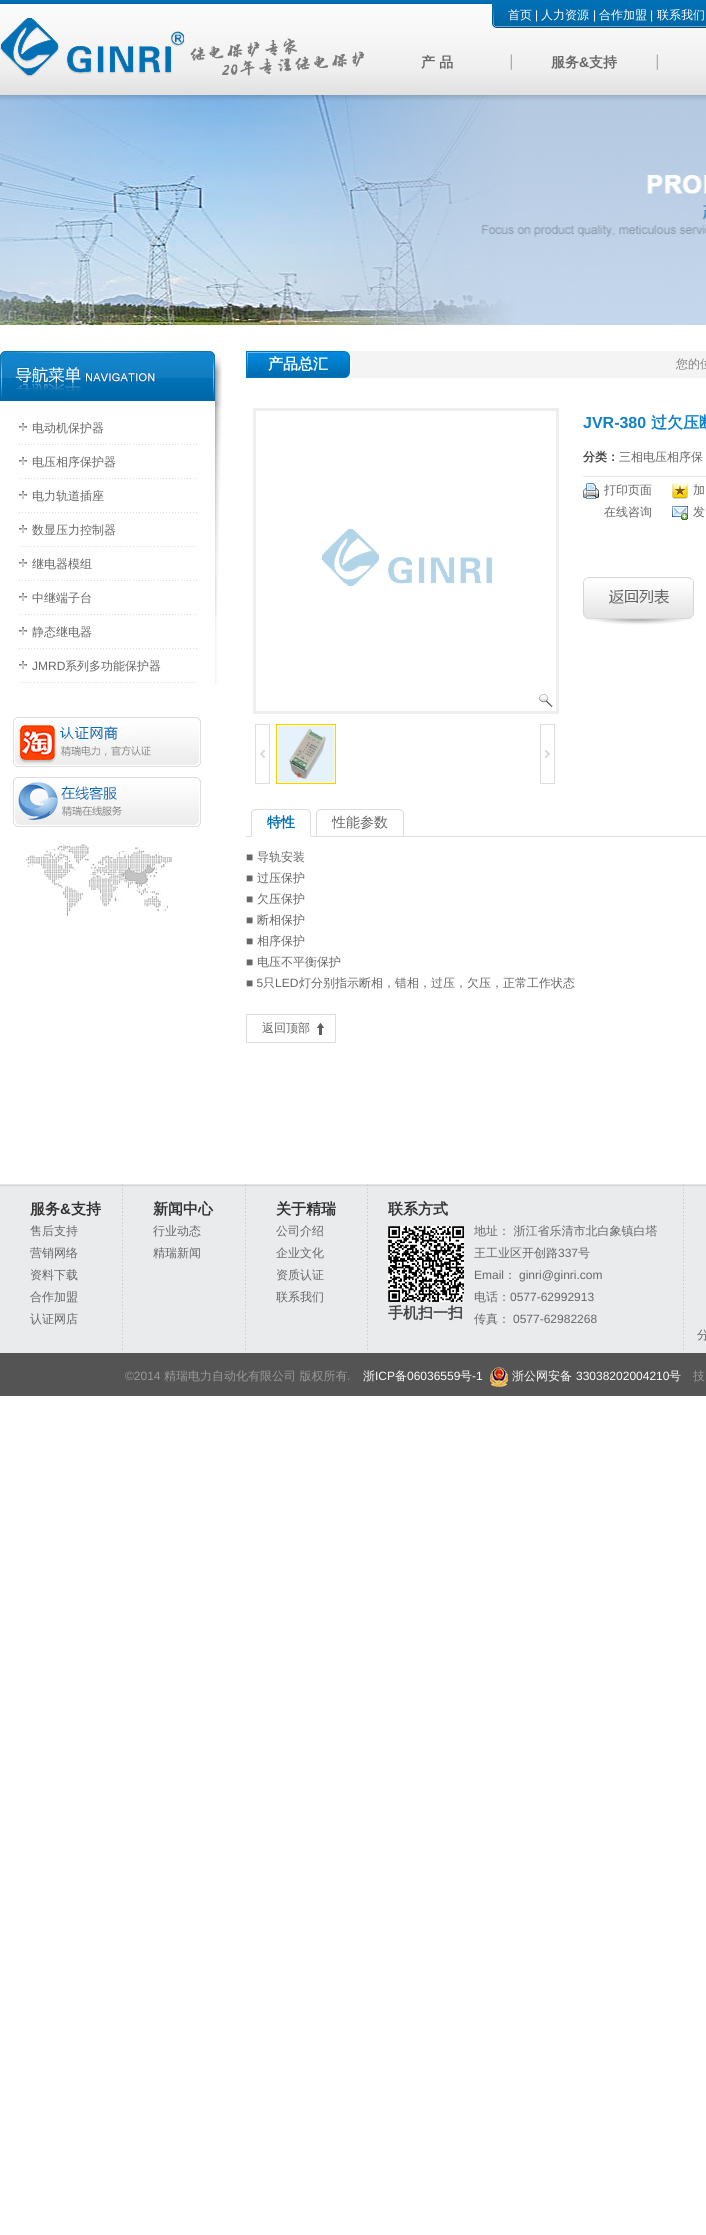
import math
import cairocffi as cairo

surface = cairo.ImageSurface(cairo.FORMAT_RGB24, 706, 2235)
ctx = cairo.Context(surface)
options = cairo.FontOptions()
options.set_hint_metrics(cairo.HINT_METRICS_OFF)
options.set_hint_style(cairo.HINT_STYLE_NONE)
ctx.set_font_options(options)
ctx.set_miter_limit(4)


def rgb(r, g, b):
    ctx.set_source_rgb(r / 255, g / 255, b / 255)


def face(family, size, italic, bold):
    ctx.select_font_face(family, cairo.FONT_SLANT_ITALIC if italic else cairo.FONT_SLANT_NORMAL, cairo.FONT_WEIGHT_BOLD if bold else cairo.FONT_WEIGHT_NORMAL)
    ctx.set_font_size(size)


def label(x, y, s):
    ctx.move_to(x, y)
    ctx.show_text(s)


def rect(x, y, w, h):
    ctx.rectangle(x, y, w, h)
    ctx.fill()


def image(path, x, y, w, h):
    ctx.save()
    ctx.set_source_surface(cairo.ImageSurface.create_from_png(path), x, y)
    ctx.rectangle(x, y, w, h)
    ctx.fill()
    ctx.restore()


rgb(255, 255, 255)
ctx.paint()
image('image0.png', 0, 0, 706, 95)
image('image1.png', 0, 18, 365, 59)
image('image2.png', 492, 2, 214, 26)
face('WenQuanYi Zen Hei Medium', 12, 0, 0)
rgb(255, 255, 255)
label(508, 19, '首页')
face('Liberation Sans', 12, 0, 0)
label(535, 19, '|')
face('WenQuanYi Zen Hei Medium', 12, 0, 0)
label(541, 19, '人力资源')
face('Liberation Sans', 12, 0, 0)
label(593, 19, '|')
face('WenQuanYi Zen Hei Medium', 12, 0, 0)
label(599, 19, '合作加盟')
face('Liberation Sans', 12, 0, 0)
label(650, 19, '|')
face('WenQuanYi Zen Hei Medium', 12, 0, 0)
label(657, 19, '联系我们')
face('WenQuanYi Zen Hei', 14, 0, 1)
rgb(102, 102, 102)
label(421, 67, '产 品')
image('image3.png', 510, 54, 2, 16)
label(551, 67, '服务')
face('Liberation Sans', 14, 0, 1)
label(579, 67, '&')
face('WenQuanYi Zen Hei', 14, 0, 1)
label(589, 67, '支持')
image('image3.png', 656, 54, 2, 16)
image('image4.png', 0, 95, 706, 230)
image('image5.png', 0, 351, 215, 50)
image('image6.png', 19, 444, 178, 1)
image('image7.png', 19, 423, 8, 8)
face('WenQuanYi Zen Hei Medium', 12, 0, 0)
label(32, 432, '电动机保护器')
image('image6.png', 19, 478, 178, 1)
image('image7.png', 19, 457, 8, 8)
label(32, 466, '电压相序保护器')
image('image6.png', 19, 512, 178, 1)
image('image7.png', 19, 491, 8, 8)
label(32, 500, '电力轨道插座')
image('image6.png', 19, 546, 178, 1)
image('image7.png', 19, 525, 8, 8)
label(32, 534, '数显压力控制器')
image('image6.png', 19, 580, 178, 1)
image('image7.png', 19, 559, 8, 8)
label(32, 568, '继电器模组')
image('image6.png', 19, 614, 178, 1)
image('image7.png', 19, 593, 8, 8)
label(32, 602, '中继端子台')
image('image6.png', 19, 648, 178, 1)
image('image7.png', 19, 627, 8, 8)
label(32, 636, '静态继电器')
image('image6.png', 19, 682, 178, 1)
image('image7.png', 19, 661, 8, 8)
face('Liberation Sans', 12, 0, 0)
label(32, 670, 'JMRD')
face('WenQuanYi Zen Hei Medium', 12, 0, 0)
label(65, 670, '系列多功能保护器')
image('image8.png', 13, 717, 188, 50)
image('image9.png', 13, 777, 188, 50)
image('image10.png', 26, 843, 147, 74)
image('image11.png', 215, 356, 7, 328)
image('image12.png', 246, 351, 460, 27)
face('WenQuanYi Zen Hei', 15, 0, 1)
rgb(255, 255, 255)
label(268, 369, '产品总汇')
face('WenQuanYi Zen Hei Medium', 12, 0, 0)
rgb(128, 128, 128)
label(676, 368, '您的位')
ctx.rectangle(254.5, 409.5, 303, 303)
rgb(238, 238, 238)
ctx.set_line_width(3)
ctx.stroke()
image('image13.png', 322, 529, 170, 58)
image('image14.png', 539, 694, 14, 14)
image('image15.png', 260, 750, 5, 8)
ctx.rectangle(255.5, 724.5, 14, 59)
rgb(221, 221, 221)
ctx.set_line_width(1)
ctx.stroke()
rgb(255, 255, 191)
ctx.rectangle(276.5, 724.5, 59, 59)
ctx.fill_preserve()
rgb(255, 204, 0)
ctx.stroke()
image('image16.png', 278, 726, 56, 56)
image('image17.png', 545, 750, 5, 8)
ctx.rectangle(540.5, 724.5, 14, 59)
rgb(221, 221, 221)
ctx.stroke()
face('Liberation Sans', 16, 0, 1)
rgb(18, 129, 200)
label(583, 428, 'JVR-380')
face('WenQuanYi Zen Hei', 16, 0, 1)
label(651, 428, '过欠压断')
rgb(230, 230, 230)
rect(583, 476, 123, 1)
face('WenQuanYi Zen Hei', 12, 0, 1)
rgb(68, 68, 68)
label(583, 461, '分类：')
face('WenQuanYi Zen Hei Medium', 12, 0, 0)
rgb(102, 102, 102)
label(619, 461, '三相电压相序保')
image('image18.png', 583, 483, 16, 16)
label(604, 494, '打印页面')
image('image19.png', 672, 483, 16, 16)
label(693, 494, '加')
label(604, 516, '在线咨询')
image('image20.png', 672, 506, 16, 14)
label(693, 516, '发')
image('image21.png', 583, 577, 111, 48)
rgb(221, 221, 221)
rect(246, 836, 460, 1)
rgb(255, 255, 255)
ctx.new_path()
ctx.move_to(256, 809)
ctx.line_to(306, 809)
ctx.curve_to(309, 809, 311, 811, 311, 814)
ctx.line_to(311, 837)
ctx.line_to(251, 837)
ctx.line_to(251, 814)
ctx.curve_to(251, 811, 253, 809, 256, 809)
ctx.close_path()
ctx.fill()
rgb(221, 221, 221)
ctx.new_path()
ctx.move_to(256, 809)
ctx.curve_to(254, 809, 253, 810, 252, 810)
ctx.line_to(253, 811)
ctx.line_to(256, 810)
ctx.line_to(306, 810)
ctx.line_to(309, 811)
ctx.line_to(310, 810)
ctx.curve_to(309, 810, 308, 809, 306, 809)
ctx.close_path()
ctx.fill()
ctx.new_path()
ctx.move_to(311, 837)
ctx.line_to(311, 814)
ctx.curve_to(311, 812.5, 310.5, 811, 309.5, 810.5)
ctx.line_to(309, 811)
ctx.curve_to(309.5, 812, 310, 813, 310, 814)
ctx.line_to(310, 836)
ctx.close_path()
ctx.fill()
rgb(255, 255, 255)
ctx.new_path()
ctx.move_to(311, 837)
ctx.line_to(310, 836)
ctx.line_to(252, 836)
ctx.line_to(251, 837)
ctx.close_path()
ctx.fill()
rgb(221, 221, 221)
ctx.new_path()
ctx.move_to(251, 837)
ctx.line_to(252, 836)
ctx.line_to(252, 814)
ctx.curve_to(252, 813, 252.5, 812, 253, 811)
ctx.line_to(252.5, 810.5)
ctx.curve_to(251.5, 811, 251, 812.5, 251, 814)
ctx.close_path()
ctx.fill()
face('WenQuanYi Zen Hei', 14, 0, 1)
rgb(1, 112, 181)
label(267, 827, '特性')
rgb(255, 255, 255)
ctx.new_path()
ctx.move_to(321, 809.5)
ctx.line_to(399, 809.5)
ctx.curve_to(401.5, 809.5, 403.5, 811.5, 403.5, 814)
ctx.line_to(403.5, 836.5)
ctx.line_to(316.5, 836.5)
ctx.line_to(316.5, 814)
ctx.curve_to(316.5, 811.5, 318.5, 809.5, 321, 809.5)
ctx.close_path()
ctx.fill_preserve()
rgb(221, 221, 221)
ctx.stroke()
face('WenQuanYi Zen Hei Medium', 14, 0, 0)
rgb(102, 102, 102)
label(332, 827, '性能参数')
face('Liberation Sans', 12, 0, 0)
label(246, 861, '■')
face('WenQuanYi Zen Hei Medium', 12, 0, 0)
label(257, 861, '导轨安装')
face('Liberation Sans', 12, 0, 0)
label(246, 882, '■')
face('WenQuanYi Zen Hei Medium', 12, 0, 0)
label(257, 882, '过压保护')
face('Liberation Sans', 12, 0, 0)
label(246, 903, '■')
face('WenQuanYi Zen Hei Medium', 12, 0, 0)
label(257, 903, '欠压保护')
face('Liberation Sans', 12, 0, 0)
label(246, 924, '■')
face('WenQuanYi Zen Hei Medium', 12, 0, 0)
label(257, 924, '断相保护')
face('Liberation Sans', 12, 0, 0)
label(246, 945, '■')
face('WenQuanYi Zen Hei Medium', 12, 0, 0)
label(257, 945, '相序保护')
face('Liberation Sans', 12, 0, 0)
label(246, 966, '■')
face('WenQuanYi Zen Hei Medium', 12, 0, 0)
label(257, 966, '电压不平衡保护')
face('Liberation Sans', 12, 0, 0)
label(246, 987, '■ 5')
face('WenQuanYi Zen Hei Medium', 12, 0, 0)
label(263, 987, '只')
face('Liberation Sans', 12, 0, 0)
label(275, 987, 'LED')
face('WenQuanYi Zen Hei Medium', 12, 0, 0)
label(299, 987, '灯分别指示断相，错相，过压，欠压，正常工作状态')
image('image22.png', 317, 1023, 7, 12)
ctx.rectangle(246.5, 1014.5, 89, 28)
rgb(221, 221, 221)
ctx.stroke()
rgb(102, 102, 102)
label(262, 1032, '返回顶部')
image('image23.png', 0, 1184, 706, 212)
face('WenQuanYi Zen Hei', 15, 0, 1)
rgb(49, 49, 49)
label(30, 1214, '服务')
face('Liberation Sans', 15, 0, 1)
label(60, 1214, '&')
face('WenQuanYi Zen Hei', 15, 0, 1)
label(71, 1214, '支持')
face('WenQuanYi Zen Hei Medium', 12, 0, 0)
rgb(102, 102, 102)
label(30, 1235, '售后支持')
label(30, 1257, '营销网络')
label(30, 1279, '资料下载')
label(30, 1301, '合作加盟')
label(30, 1323, '认证网店')
image('image24.png', 122, 1184, 1, 168)
face('WenQuanYi Zen Hei', 15, 0, 1)
rgb(49, 49, 49)
label(153, 1214, '新闻中心')
face('WenQuanYi Zen Hei Medium', 12, 0, 0)
rgb(102, 102, 102)
label(153, 1235, '行业动态')
label(153, 1257, '精瑞新闻')
image('image24.png', 245, 1184, 1, 168)
face('WenQuanYi Zen Hei', 15, 0, 1)
rgb(49, 49, 49)
label(276, 1214, '关于精瑞')
face('WenQuanYi Zen Hei Medium', 12, 0, 0)
rgb(102, 102, 102)
label(276, 1235, '公司介绍')
label(276, 1257, '企业文化')
label(276, 1279, '资质认证')
label(276, 1301, '联系我们')
image('image24.png', 367, 1184, 1, 168)
face('WenQuanYi Zen Hei', 15, 0, 1)
rgb(49, 49, 49)
label(388, 1214, '联系方式')
image('image25.png', 388, 1226, 76, 76)
rgb(68, 68, 68)
label(388, 1318, '手机扫一扫')
face('WenQuanYi Zen Hei Medium', 12, 0, 0)
rgb(102, 102, 102)
label(474, 1235, '地址： 浙江省乐清市北白象镇白塔')
label(474, 1257, '王工业区开创路')
face('Liberation Sans', 12, 0, 0)
label(558, 1257, '337')
face('WenQuanYi Zen Hei Medium', 12, 0, 0)
label(578, 1257, '号')
face('Liberation Sans', 12, 0, 0)
label(474, 1279, 'Email')
face('WenQuanYi Zen Hei Medium', 12, 0, 0)
label(504, 1279, '：')
face('Liberation Sans', 12, 0, 0)
label(519, 1279, 'ginri@ginri.com')
face('WenQuanYi Zen Hei Medium', 12, 0, 0)
label(474, 1301, '电话：')
face('Liberation Sans', 12, 0, 0)
label(510, 1301, '0577-62992913')
face('WenQuanYi Zen Hei Medium', 12, 0, 0)
label(474, 1323, '传真：')
face('Liberation Sans', 12, 0, 0)
label(513, 1323, '0577-62982268')
image('image24.png', 683, 1184, 1, 168)
face('WenQuanYi Zen Hei Medium', 12, 0, 0)
label(697, 1339, '分')
face('Liberation Sans', 12, 0, 0)
rgb(153, 153, 153)
label(125, 1380, '©2014')
face('WenQuanYi Zen Hei Medium', 12, 0, 0)
label(164, 1380, '精瑞电力自动化有限公司 版权所有')
face('Liberation Sans', 12, 0, 0)
label(347, 1380, '.')
face('WenQuanYi Zen Hei Medium', 12, 0, 0)
rgb(255, 255, 255)
label(363, 1380, '浙')
face('Liberation Sans', 12, 0, 0)
label(375, 1380, 'ICP')
face('WenQuanYi Zen Hei Medium', 12, 0, 0)
label(395, 1380, '备')
face('Liberation Sans', 12, 0, 0)
label(407, 1380, '06036559')
face('WenQuanYi Zen Hei Medium', 12, 0, 0)
label(460, 1380, '号')
face('Liberation Sans', 12, 0, 0)
label(472, 1380, '-1')
image('image26.png', 490, 1367, 18, 20)
face('WenQuanYi Zen Hei Medium', 12, 0, 0)
label(512, 1380, '浙公网安备')
face('Liberation Sans', 12, 0, 0)
label(576, 1380, '33038202004210')
face('WenQuanYi Zen Hei Medium', 12, 0, 0)
label(669, 1380, '号')
rgb(153, 153, 153)
label(693, 1380, '技')
surface.write_to_png('render.png')
